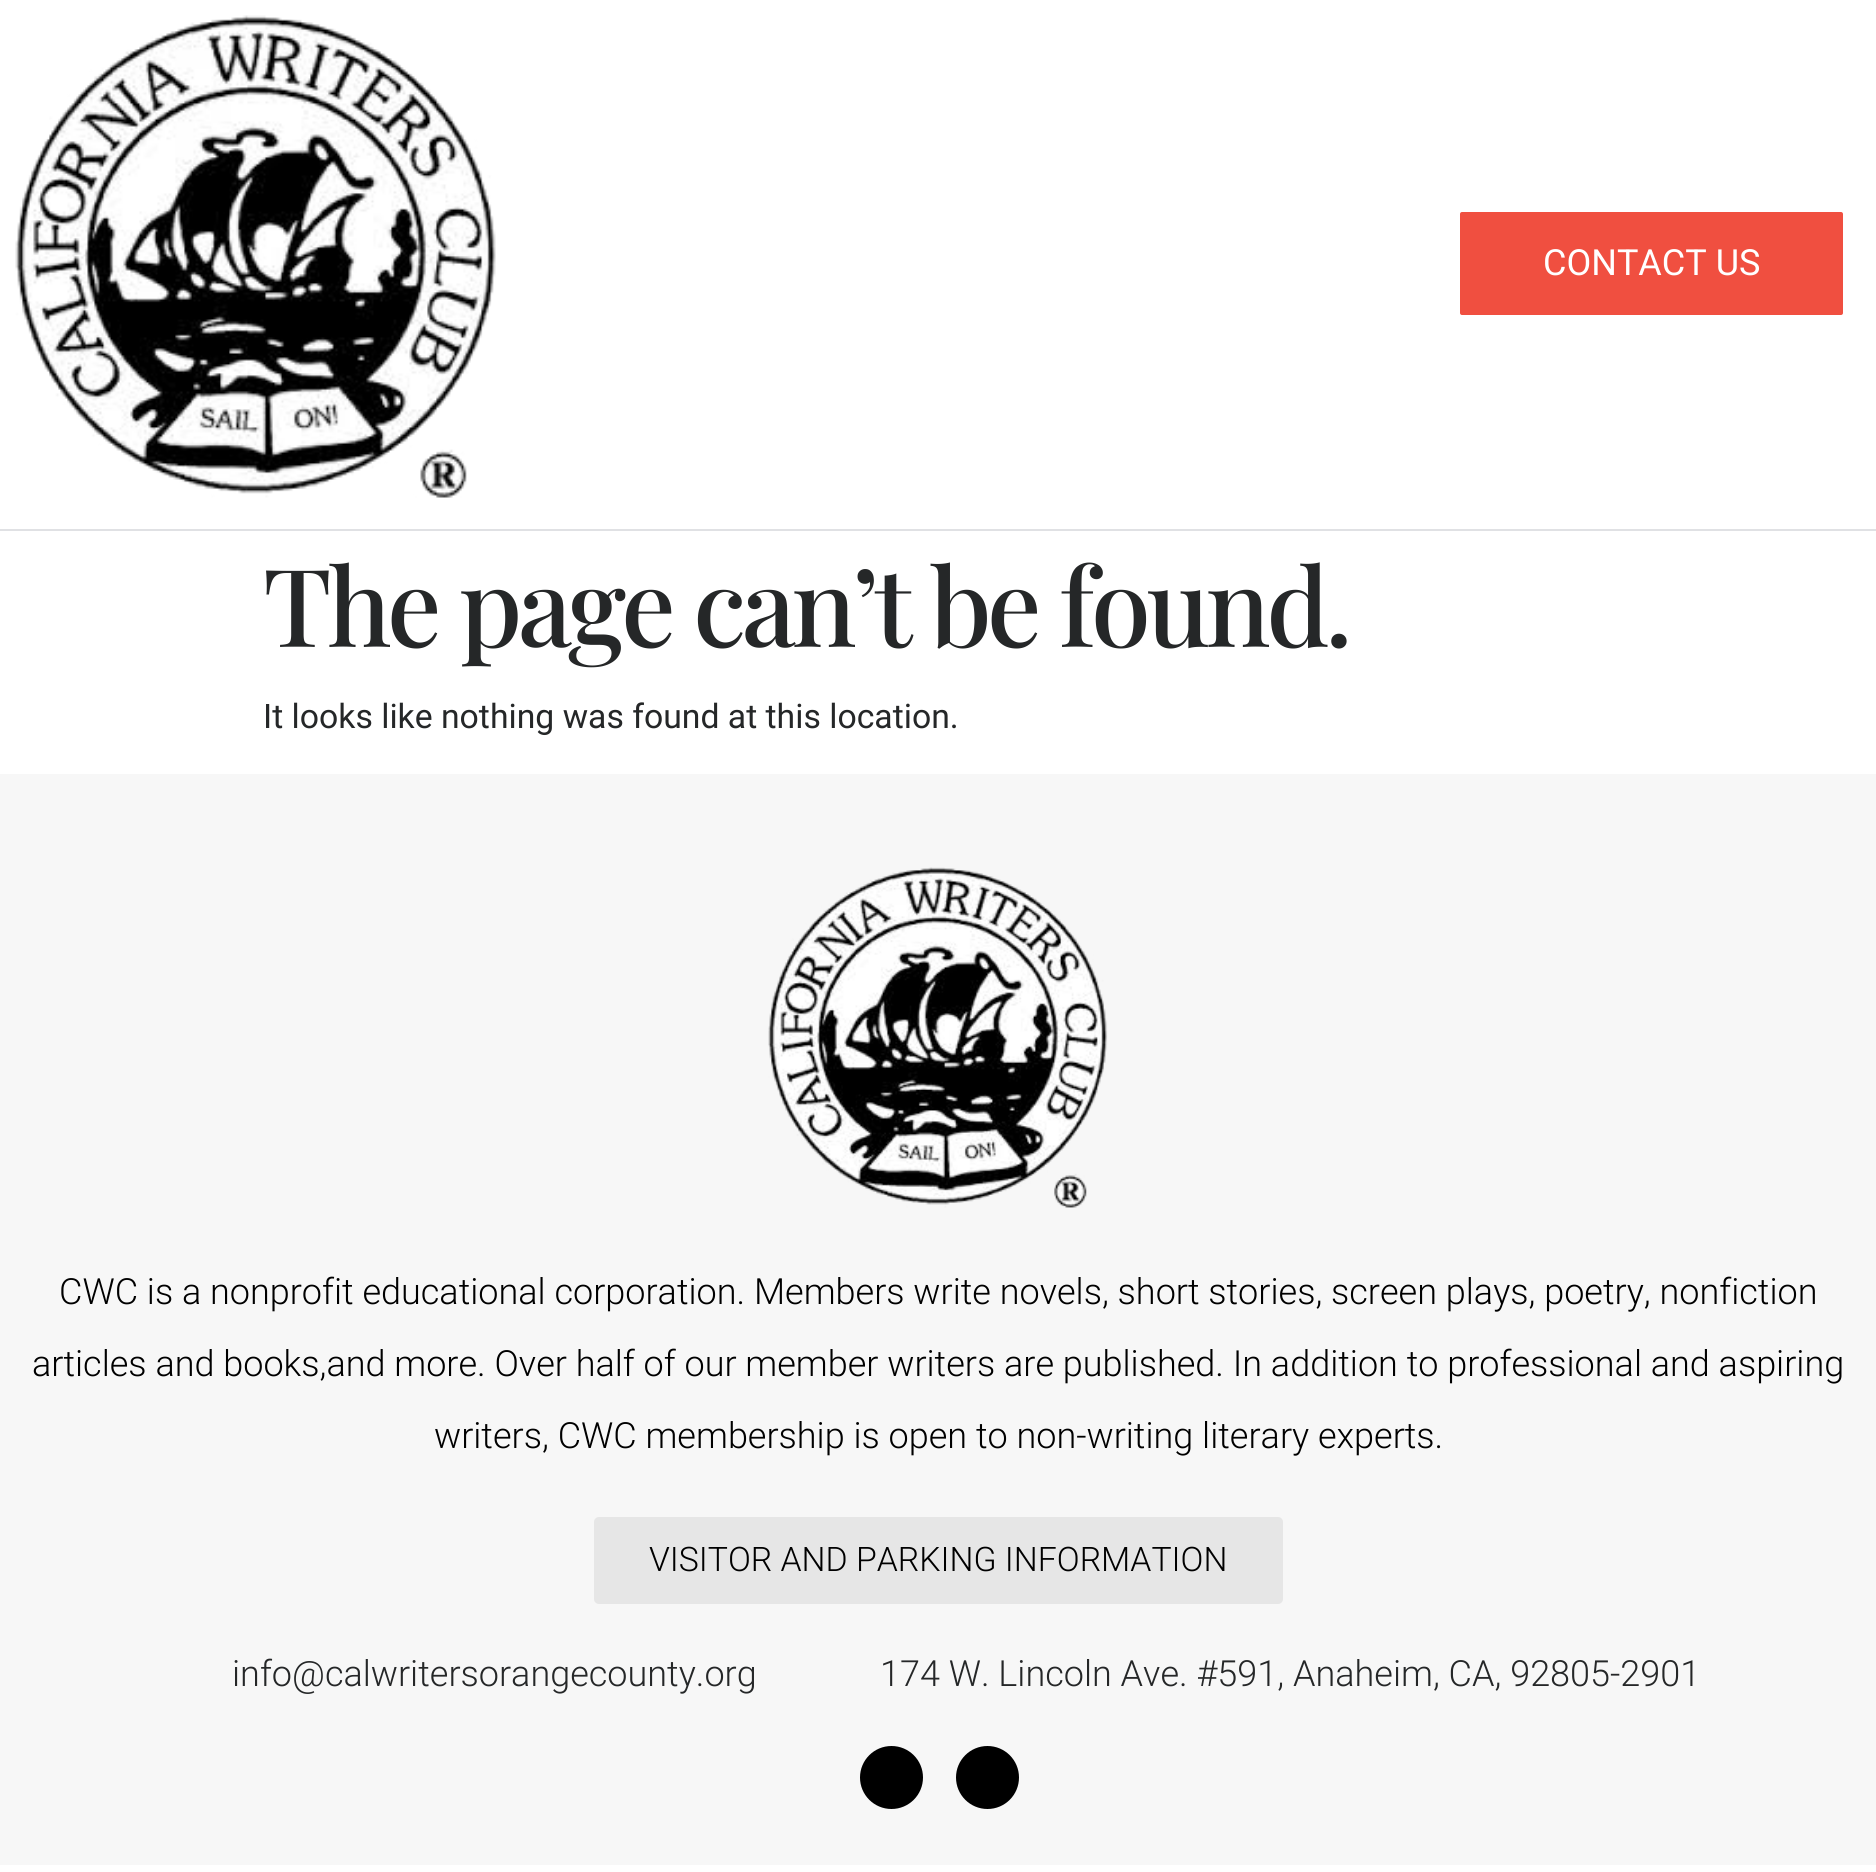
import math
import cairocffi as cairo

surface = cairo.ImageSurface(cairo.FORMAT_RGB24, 1876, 1872)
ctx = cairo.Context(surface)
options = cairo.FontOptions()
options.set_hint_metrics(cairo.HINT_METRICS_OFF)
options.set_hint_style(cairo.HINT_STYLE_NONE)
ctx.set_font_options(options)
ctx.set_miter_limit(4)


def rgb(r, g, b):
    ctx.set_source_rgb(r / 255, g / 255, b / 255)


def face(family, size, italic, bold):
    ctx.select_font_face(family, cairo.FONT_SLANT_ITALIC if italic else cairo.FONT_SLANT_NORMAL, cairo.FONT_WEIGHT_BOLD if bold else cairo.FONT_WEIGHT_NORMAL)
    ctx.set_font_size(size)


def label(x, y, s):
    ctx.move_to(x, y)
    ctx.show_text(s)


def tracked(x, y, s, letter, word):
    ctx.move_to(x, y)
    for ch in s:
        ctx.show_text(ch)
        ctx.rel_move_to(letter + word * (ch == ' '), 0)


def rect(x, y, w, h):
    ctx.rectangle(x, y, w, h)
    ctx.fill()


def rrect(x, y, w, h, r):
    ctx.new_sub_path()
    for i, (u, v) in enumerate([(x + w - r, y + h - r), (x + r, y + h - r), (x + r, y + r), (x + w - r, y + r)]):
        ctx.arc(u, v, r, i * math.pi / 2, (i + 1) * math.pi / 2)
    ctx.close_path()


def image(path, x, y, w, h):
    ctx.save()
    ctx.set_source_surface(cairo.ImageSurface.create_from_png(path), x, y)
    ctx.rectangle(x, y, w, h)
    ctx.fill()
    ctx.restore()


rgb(255, 255, 255)
ctx.paint()
rgb(224, 225, 228)
rect(0, 529, 1876, 2)
image('image0.png', 15, 15, 481, 483)
rgb(240, 79, 64)
rrect(1460, 212, 383, 103, 2)
ctx.fill()
face('Roboto', 36, 0, 0)
rgb(255, 255, 255)
label(1543, 275, 'CONTACT US')
face('Playfair Display Medium', 108, 0, 0)
rgb(37, 39, 40)
tracked(263, 647, 'The page can’t be found.', -4.5, 0)
face('Roboto', 33.75, 0, 0)
label(263, 728, 'It looks like nothing was found at this location.')
rgb(247, 247, 247)
rect(0, 774, 1876, 1091)
image('image1.png', 768, 867, 340, 341)
face('Roboto Light', 36, 0, 0)
rgb(0, 0, 0)
label(59, 1304, 'CWC is a nonprofit educational corporation. Members write novels, short stories, screen plays, poetry, nonfiction')
label(32, 1376, 'articles and books,and more. Over half of our member writers are published. In addition to professional and aspiring')
label(434, 1448, 'writers, CWC membership is open to non-writing literary experts.')
rgb(230, 230, 230)
rrect(594, 1517, 689, 87, 5)
ctx.fill()
face('Roboto Light', 33.75, 0, 0)
rgb(0, 0, 0)
label(649, 1571, 'VISITOR AND PARKING INFORMATION')
face('Roboto Light', 36, 0, 0)
rgb(37, 39, 40)
label(232, 1686, 'info@calwritersorangecounty.org')
label(880, 1686, '174 W. Lincoln Ave. #591, Anaheim, CA, 92805-2901')
rgb(0, 0, 0)
ctx.new_path()
ctx.arc(891.5, 1777.5, 31.5, 0, 2 * math.pi)
ctx.fill()
ctx.arc(987.5, 1777.5, 31.5, 0, 2 * math.pi)
ctx.fill()
surface.write_to_png('render.png')
